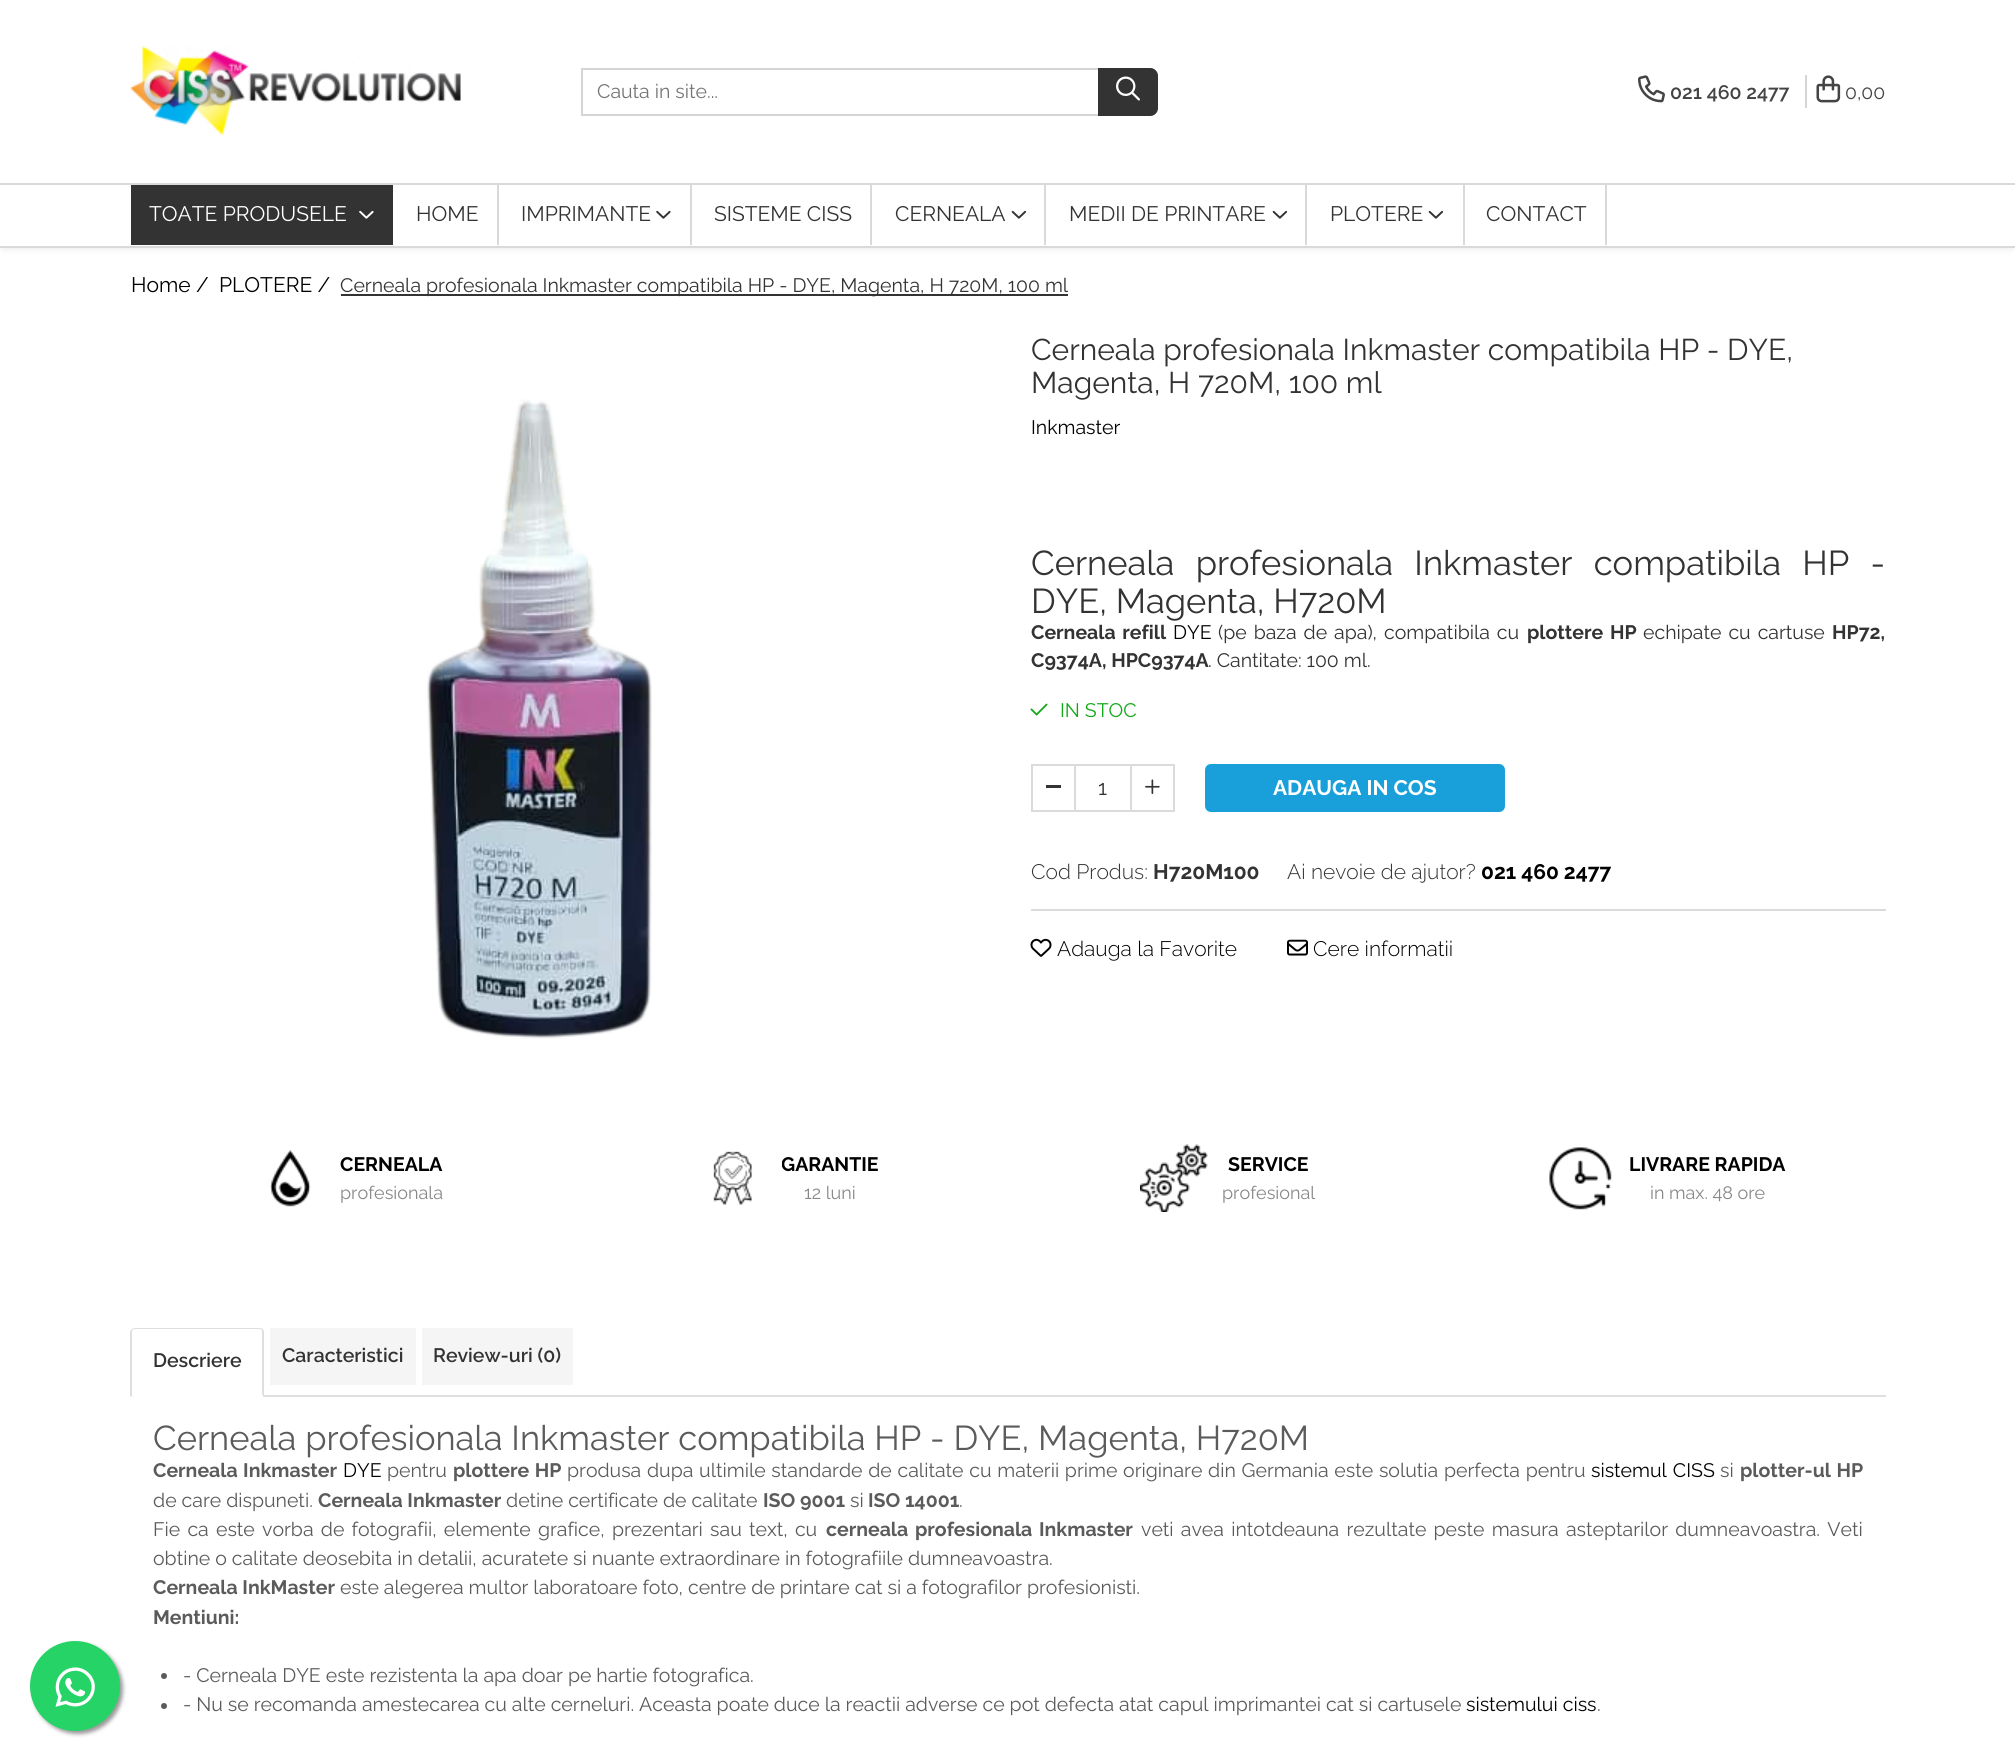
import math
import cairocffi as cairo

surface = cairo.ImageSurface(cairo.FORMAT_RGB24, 2015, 1761)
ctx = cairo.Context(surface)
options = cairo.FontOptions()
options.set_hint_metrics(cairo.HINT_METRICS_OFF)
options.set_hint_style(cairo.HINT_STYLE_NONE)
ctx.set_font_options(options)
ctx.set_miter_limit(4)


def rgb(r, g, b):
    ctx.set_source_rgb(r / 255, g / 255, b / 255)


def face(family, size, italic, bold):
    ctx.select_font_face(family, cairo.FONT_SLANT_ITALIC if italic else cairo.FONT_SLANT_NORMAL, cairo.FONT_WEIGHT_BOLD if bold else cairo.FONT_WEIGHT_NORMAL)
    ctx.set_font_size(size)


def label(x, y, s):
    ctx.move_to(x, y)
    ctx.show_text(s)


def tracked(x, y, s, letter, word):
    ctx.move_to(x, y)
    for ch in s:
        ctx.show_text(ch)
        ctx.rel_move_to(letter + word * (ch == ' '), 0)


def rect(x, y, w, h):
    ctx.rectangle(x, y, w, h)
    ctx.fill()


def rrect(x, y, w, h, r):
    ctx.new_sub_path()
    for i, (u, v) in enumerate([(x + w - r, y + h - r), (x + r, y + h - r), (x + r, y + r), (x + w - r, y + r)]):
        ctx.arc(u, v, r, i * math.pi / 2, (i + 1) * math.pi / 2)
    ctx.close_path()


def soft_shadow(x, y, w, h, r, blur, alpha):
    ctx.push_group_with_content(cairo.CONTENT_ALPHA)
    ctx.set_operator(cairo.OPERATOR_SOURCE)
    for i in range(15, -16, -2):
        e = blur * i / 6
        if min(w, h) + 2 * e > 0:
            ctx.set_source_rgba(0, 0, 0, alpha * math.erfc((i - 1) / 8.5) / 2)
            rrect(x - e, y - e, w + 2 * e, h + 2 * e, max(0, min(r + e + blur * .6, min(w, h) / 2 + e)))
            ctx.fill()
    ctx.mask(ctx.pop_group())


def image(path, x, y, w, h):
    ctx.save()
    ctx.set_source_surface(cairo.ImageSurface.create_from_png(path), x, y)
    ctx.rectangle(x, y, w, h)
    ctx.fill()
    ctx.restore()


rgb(255, 255, 255)
ctx.paint()
rgb(153, 153, 153)
soft_shadow(33, 1644, 90, 90, 45, 2, 1)
rgb(37, 211, 102)
ctx.arc(75, 1686, 45, 0, 2 * math.pi)
ctx.fill()
image('image0.png', 55, 1667, 40, 40)
image('image1.png', 130, 46, 331, 89)
ctx.new_path()
ctx.move_to(582, 69)
ctx.line_to(1150, 69)
ctx.curve_to(1154, 69, 1157, 72, 1157, 76)
ctx.line_to(1157, 108)
ctx.curve_to(1157, 112, 1154, 115, 1150, 115)
ctx.line_to(582, 115)
ctx.close_path()
rgb(213, 213, 213)
ctx.stroke()
face('Raleway', 19.5, 0, 0)
rgb(117, 117, 117)
label(597, 98, 'Cauta in site...')
rgb(51, 51, 51)
ctx.new_path()
ctx.move_to(1098, 68)
ctx.line_to(1150, 68)
ctx.curve_to(1154.5, 68, 1158, 71.5, 1158, 76)
ctx.line_to(1158, 108)
ctx.curve_to(1158, 112.5, 1154.5, 116, 1150, 116)
ctx.line_to(1098, 116)
ctx.close_path()
ctx.fill()
image('image2.png', 1116, 76, 24, 25)
image('image3.png', 1638, 75, 27, 28)
face('Raleway SemiBold', 19.5, 0, 0)
rgb(68, 68, 68)
label(1670, 99, '021 460 2477')
rgb(213, 213, 213)
rect(1805, 75, 2, 33)
image('image4.png', 1816, 75, 25, 28)
face('Raleway', 19.5, 0, 0)
rgb(68, 68, 68)
label(1845, 99, '0,00')
rgb(0, 0, 0)
soft_shadow(3, 189, 2010, 59, 0, 4, 0.1)
rgb(255, 255, 255)
rect(0, 185, 2015, 61)
rgb(217, 217, 217)
rect(0, 183, 2015, 2)
rect(0, 246, 2015, 2)
rgb(51, 51, 51)
rect(131, 185, 262, 60)
face('Raleway', 21, 0, 0)
rgb(255, 255, 255)
label(149, 221, 'TOATE PRODUSELE')
image('image5.png', 359, 210, 15, 9)
rgb(217, 217, 217)
rect(497, 185, 2, 60)
rgb(51, 51, 51)
label(416, 221, 'HOME')
rgb(217, 217, 217)
rect(690, 185, 2, 60)
rgb(51, 51, 51)
label(521, 221, 'IMPRIMANTE')
image('image6.png', 656, 210, 15, 9)
rgb(217, 217, 217)
rect(870, 185, 2, 60)
rgb(51, 51, 51)
label(714, 221, 'SISTEME CISS')
rgb(217, 217, 217)
rect(1044, 185, 2, 60)
rgb(51, 51, 51)
label(895, 221, 'CERNEALA')
image('image7.png', 1011, 210, 16, 9)
rgb(217, 217, 217)
rect(1305, 185, 2, 60)
rgb(51, 51, 51)
label(1069, 221, 'MEDII DE PRINTARE')
image('image7.png', 1272, 210, 16, 9)
rgb(217, 217, 217)
rect(1463, 185, 2, 60)
rgb(51, 51, 51)
label(1330, 221, 'PLOTERE')
image('image7.png', 1428, 210, 16, 9)
rgb(217, 217, 217)
rect(1605, 185, 2, 60)
rgb(51, 51, 51)
label(1486, 221, 'CONTACT')
rgb(0, 0, 0)
label(131, 292, 'Home /')
label(219, 292, 'PLOTERE /')
rgb(51, 51, 51)
rect(341, 294, 727, 2)
face('Raleway', 19.5, 0, 0)
label(340, 292, 'Cerneala profesionala Inkmaster compatibila HP - DYE, Magenta, H 720M, 100 ml')
face('Raleway', 30, 0, 0)
label(1031, 360, 'Cerneala profesionala Inkmaster compatibila HP - DYE,')
label(1031, 393, 'Magenta, H 720M, 100 ml')
face('Raleway', 19.5, 0, 0)
rgb(0, 0, 0)
label(1031, 434, 'Inkmaster')
image('image8.png', 427, 399, 225, 640)
face('Raleway', 34.5, 0, 0)
rgb(51, 51, 51)
tracked(1031, 575, 'Cerneala profesionala Inkmaster compatibila HP -', 0, 12.5)
label(1031, 613, 'DYE, Magenta, H720M')
face('Raleway', 19.5, 0, 1)
tracked(1031, 639, 'Cerneala refill', 0, 2)
face('Raleway', 19.5, 0, 0)
rgb(0, 0, 0)
label(1173, 639, 'DYE')
rgb(51, 51, 51)
tracked(1218, 639, '(pe baza de apa), compatibila cu', 0, 2)
face('Raleway', 19.5, 0, 1)
tracked(1527, 639, 'plottere HP', 0, 2)
face('Raleway', 19.5, 0, 0)
tracked(1643, 639, 'echipate cu cartuse', 0, 2)
face('Raleway', 19.5, 0, 1)
label(1832, 639, 'HP72,')
label(1031, 667, 'C9374A, HPC9374A')
face('Raleway', 19.5, 0, 0)
label(1208, 667, '. Cantitate: 100 ml.')
image('image9.png', 1030, 703, 18, 13)
rgb(17, 167, 23)
label(1060, 717, 'IN STOC')
ctx.rectangle(1032, 765, 43, 46)
rgb(219, 219, 219)
ctx.stroke()
rgb(51, 51, 51)
rect(1046, 785, 15, 3)
rgb(219, 219, 219)
rect(1076, 764, 54, 2)
rect(1076, 810, 54, 2)
face('Raleway', 21, 0, 0)
rgb(51, 51, 51)
label(1098, 795, '1')
ctx.rectangle(1131, 765, 43, 46)
rgb(219, 219, 219)
ctx.stroke()
image('image10.png', 1145, 779, 15, 15)
rgb(25, 160, 218)
rrect(1205, 764, 300, 48, 6)
ctx.fill()
face('Raleway', 21, 0, 1)
rgb(255, 255, 255)
label(1273, 795, 'ADAUGA IN COS')
face('Raleway Light', 21, 0, 0)
rgb(51, 51, 51)
label(1031, 879, 'Cod Produs:')
face('Raleway', 21, 0, 1)
label(1153, 879, 'H720M100')
face('Raleway Light', 21, 0, 0)
label(1287, 879, 'Ai nevoie de ajutor?')
face('Raleway', 21, 0, 1)
rgb(0, 0, 0)
label(1481, 879, '021 460 2477')
rgb(219, 219, 219)
rect(1031, 909, 855, 2)
image('image11.png', 1030, 938, 22, 19)
face('Raleway Light', 21, 0, 0)
rgb(0, 0, 0)
label(1057, 956, 'Adauga la Favorite')
image('image12.png', 1287, 939, 21, 17)
label(1313, 956, 'Cere informatii')
image('image13.png', 270, 1150, 41, 57)
face('Raleway', 19.5, 0, 1)
label(340, 1171, 'CERNEALA')
face('Raleway', 18, 0, 0)
rgb(137, 136, 136)
label(340, 1199, 'profesionala')
image('image14.png', 713, 1151, 40, 54)
ctx.save()
ctx.rectangle(782, 1152, 97, 53)
ctx.clip()
face('Raleway', 19.5, 0, 1)
rgb(0, 0, 0)
label(781, 1171, 'GARANTIE')
ctx.restore()
label(804, 1199, '12 luni')
image('image15.png', 1140, 1144, 68, 68)
face('Raleway', 19.5, 0, 1)
rgb(0, 0, 0)
label(1228, 1171, 'SERVICE')
face('Raleway', 18, 0, 0)
rgb(137, 136, 136)
label(1222, 1199, 'profesional')
image('image16.png', 1549, 1147, 63, 63)
face('Raleway', 19.5, 0, 1)
rgb(0, 0, 0)
label(1629, 1171, 'LIVRARE RAPIDA')
face('Raleway', 18, 0, 0)
rgb(137, 136, 136)
label(1650, 1199, 'in max. 48 ore')
rgb(223, 223, 223)
rect(131, 1395, 1755, 2)
rgb(255, 255, 255)
ctx.new_path()
ctx.move_to(135, 1329)
ctx.line_to(260, 1329)
ctx.curve_to(261.5, 1329, 263, 1330.5, 263, 1332)
ctx.line_to(263, 1397)
ctx.line_to(132, 1397)
ctx.line_to(132, 1332)
ctx.curve_to(132, 1330.5, 133.5, 1329, 135, 1329)
ctx.close_path()
ctx.fill()
rgb(223, 223, 223)
ctx.set_fill_rule(cairo.FILL_RULE_EVEN_ODD)
ctx.new_path()
ctx.move_to(135, 1328)
ctx.line_to(260, 1328)
ctx.curve_to(262, 1328, 264, 1330, 264, 1332)
ctx.line_to(264, 1396)
ctx.line_to(130, 1396)
ctx.line_to(130, 1332)
ctx.curve_to(130, 1330, 133, 1328, 135, 1328)
ctx.close_path()
ctx.move_to(135, 1329)
ctx.line_to(260, 1329)
ctx.curve_to(261, 1329, 262, 1330, 262, 1332)
ctx.line_to(262, 1396)
ctx.line_to(132, 1396)
ctx.line_to(132, 1332)
ctx.curve_to(132, 1330, 133, 1329, 135, 1329)
ctx.close_path()
ctx.fill()
face('Raleway SemiBold', 19.5, 0, 0)
rgb(51, 51, 51)
label(153, 1367, 'Descriere')
rgb(255, 255, 255)
rect(262, 1395, 1, 1)
rgb(245, 245, 245)
rect(270, 1328, 146, 57)
rgb(51, 51, 51)
label(282, 1362, 'Caracteristici')
rgb(245, 245, 245)
rect(422, 1328, 151, 57)
rgb(51, 51, 51)
label(433, 1362, 'Review-uri (0)')
face('Raleway', 34.5, 0, 0)
rgb(91, 91, 91)
label(153, 1450, 'Cerneala profesionala Inkmaster compatibila HP - DYE, Magenta, H720M')
face('Raleway', 19.5, 0, 1)
tracked(153, 1477, 'Cerneala Inkmaster', 0, 0.75)
face('Raleway', 19.5, 0, 0)
rgb(0, 0, 0)
label(343, 1477, 'DYE')
rgb(91, 91, 91)
label(387, 1477, 'pentru')
face('Raleway', 19.5, 0, 1)
tracked(453, 1477, 'plottere HP', 0, 0.75)
face('Raleway', 19.5, 0, 0)
tracked(567, 1477, 'produsa dupa ultimile standarde de calitate cu materii prime originare din Germania este solutia perfecta pentru', 0, 0.75)
rgb(0, 0, 0)
tracked(1591, 1477, 'sistemul CISS', 0, 1)
rgb(91, 91, 91)
label(1720, 1477, 'si')
face('Raleway', 19.5, 0, 1)
tracked(1740, 1477, 'plotter-ul HP', 0, 0.75)
face('Raleway', 19.5, 0, 0)
label(153, 1507, 'de care dispuneti.')
face('Raleway', 19.5, 0, 1)
label(318, 1507, 'Cerneala Inkmaster')
face('Raleway', 19.5, 0, 0)
label(506, 1507, 'detine certificate de calitate')
face('Raleway', 19.5, 0, 1)
label(763, 1507, 'ISO 9001')
face('Raleway', 19.5, 0, 0)
label(850, 1507, 'si')
face('Raleway', 19.5, 0, 1)
label(868, 1507, 'ISO 14001')
face('Raleway', 19.5, 0, 0)
label(959, 1507, '.')
tracked(153, 1536, 'Fie ca este vorba de fotografii, elemente grafice, prezentari sau text, cu', 0, 2.25)
face('Raleway', 19.5, 0, 1)
tracked(826, 1536, 'cerneala profesionala Inkmaster', 0, 2)
face('Raleway', 19.5, 0, 0)
tracked(1141, 1536, 'veti avea intotdeauna rezultate peste masura asteptarilor dumneavoastra. Veti', 0, 2.25)
label(153, 1565, 'obtine o calitate deosebita in detalii, acuratete si nuante extraordinare in fotografiile dumneavoastra.')
face('Raleway', 19.5, 0, 1)
label(153, 1594, 'Cerneala InkMaster')
face('Raleway', 19.5, 0, 0)
label(340, 1594, 'este alegerea multor laboratoare foto, centre de printare cat si a fotografilor profesionisti.')
face('Raleway', 19.5, 0, 1)
label(153, 1624, 'Mentiuni:')
ctx.new_path()
ctx.arc(164, 1676, 3, 0, 2 * math.pi)
ctx.fill()
face('Raleway', 19.5, 0, 0)
label(183, 1682, '- Cerneala DYE este rezistenta la apa doar pe hartie fotografica.')
ctx.new_path()
ctx.arc(164, 1706, 3, 0, 2 * math.pi)
ctx.fill()
label(183, 1711, '- Nu se recomanda amestecarea cu alte cerneluri. Aceasta poate duce la reactii adverse ce pot defecta atat capul imprimantei cat si cartusele')
rgb(0, 0, 0)
label(1466, 1711, 'sistemului ciss')
rgb(91, 91, 91)
label(1597, 1711, '.')
surface.write_to_png('render.png')
